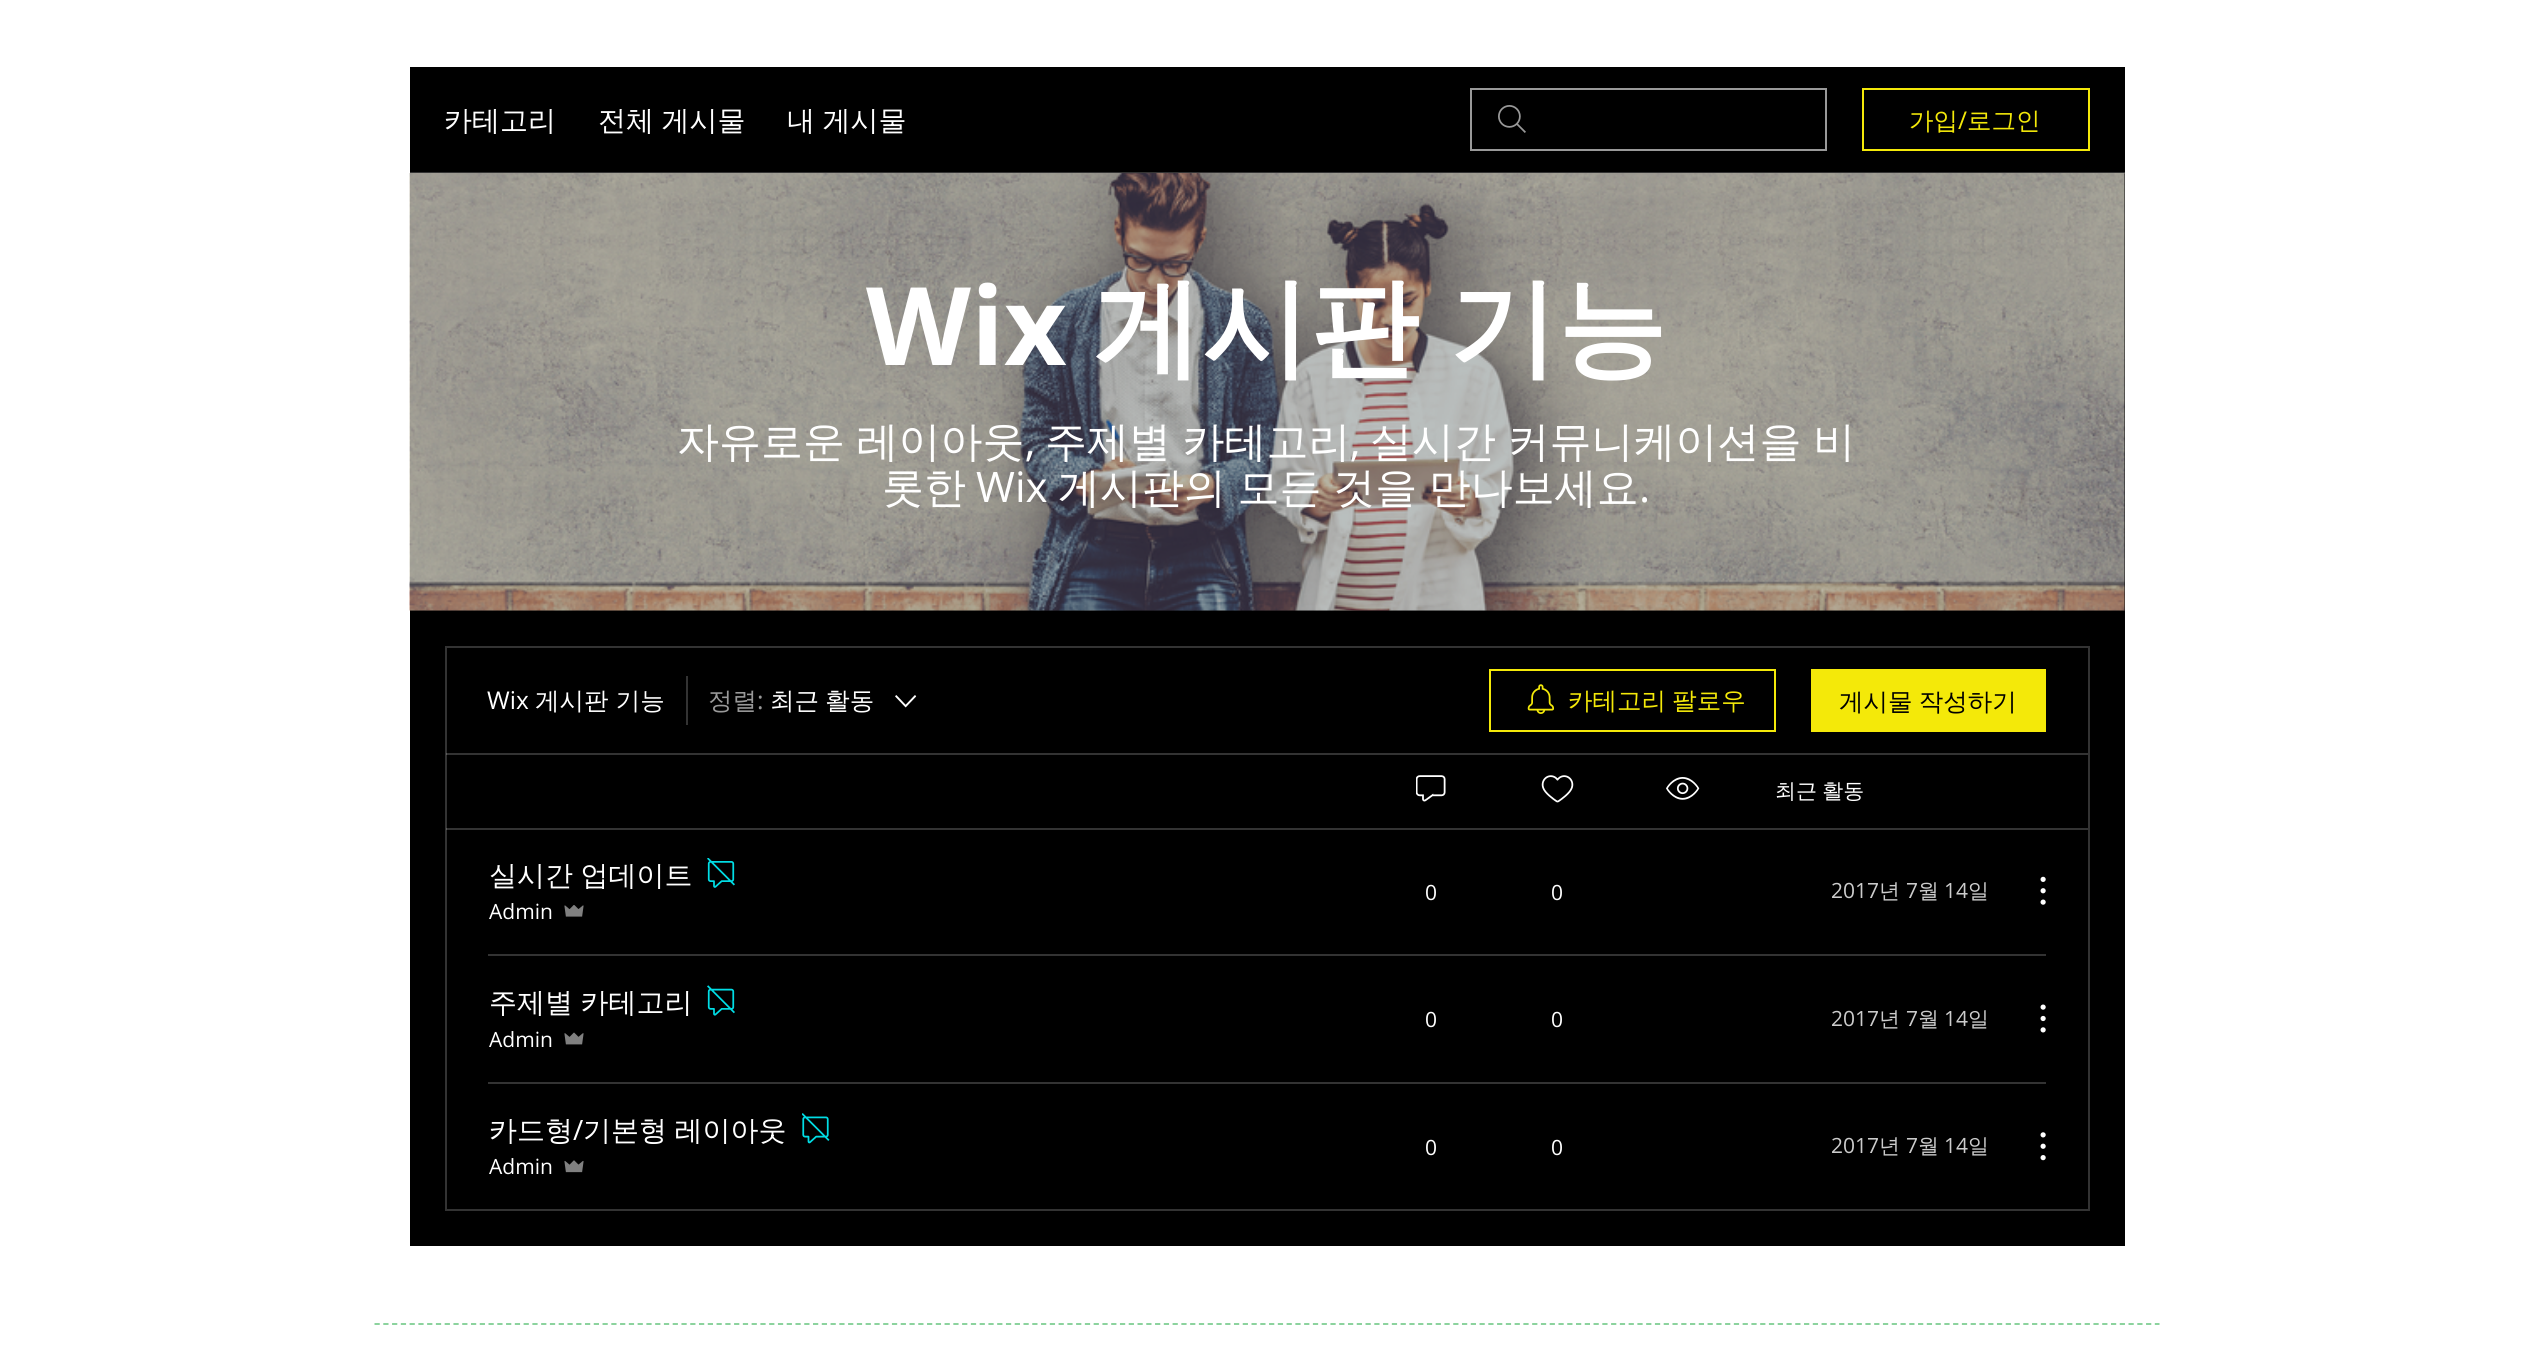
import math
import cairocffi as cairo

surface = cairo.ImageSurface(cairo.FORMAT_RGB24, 2531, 1351)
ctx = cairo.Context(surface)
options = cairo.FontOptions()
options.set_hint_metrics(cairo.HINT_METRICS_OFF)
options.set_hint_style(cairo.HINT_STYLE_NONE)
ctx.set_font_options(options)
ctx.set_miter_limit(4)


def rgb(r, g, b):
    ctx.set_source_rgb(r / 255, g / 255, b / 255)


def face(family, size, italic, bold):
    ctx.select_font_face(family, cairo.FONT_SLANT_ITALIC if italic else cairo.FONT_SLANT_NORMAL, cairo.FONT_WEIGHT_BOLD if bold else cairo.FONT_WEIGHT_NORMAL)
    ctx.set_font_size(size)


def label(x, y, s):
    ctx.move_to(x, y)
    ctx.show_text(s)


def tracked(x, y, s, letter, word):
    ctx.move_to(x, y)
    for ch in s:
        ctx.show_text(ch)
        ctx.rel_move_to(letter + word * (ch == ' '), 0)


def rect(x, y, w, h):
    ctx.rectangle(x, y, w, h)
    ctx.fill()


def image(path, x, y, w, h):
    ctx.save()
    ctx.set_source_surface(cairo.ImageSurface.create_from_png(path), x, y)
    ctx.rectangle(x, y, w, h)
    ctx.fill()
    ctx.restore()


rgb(255, 255, 255)
ctx.paint()
rgb(0, 0, 0)
rect(410, 67, 1715, 1179)
rgb(13, 13, 13)
rect(410, 174, 1715, 437)
rgb(51, 51, 51)
rect(410, 172, 1715, 1)
rgb(49, 49, 49)
rect(2124, 173, 1, 1)
face('WenQuanYi Zen Hei Medium', 28, 0, 0)
rgb(255, 255, 255)
label(444, 130, '카테고리')
tracked(598, 130, '전체 게시물', 0, -1)
tracked(787, 130, '내 게시물', 0, -1)
image('image0.png', 1498, 105, 28, 28)
ctx.rectangle(1471, 89, 355, 61)
rgb(153, 153, 153)
ctx.stroke()
ctx.rectangle(1863, 89, 226, 61)
rgb(244, 233, 9)
ctx.stroke()
face('WenQuanYi Zen Hei Medium', 24.5, 0, 0)
label(1909, 129, '가입')
face('Open Sans', 24.5, 0, 0)
label(1958, 129, '/')
face('WenQuanYi Zen Hei Medium', 24.5, 0, 0)
label(1967, 129, '로그인')
image('image1.png', 409, 173, 1716, 438)
face('Open Sans', 108.5, 0, 1)
rgb(255, 255, 255)
label(866, 365, 'Wix')
face('WenQuanYi Zen Hei', 108.5, 0, 1)
tracked(1093, 365, '게시판 기능', 0, -2)
face('WenQuanYi Zen Hei Medium', 42, 0, 0)
tracked(677, 456, '자유로운 레이아웃', 0, -1)
face('Open Sans', 42, 0, 0)
label(1025, 456, ',')
face('WenQuanYi Zen Hei Medium', 42, 0, 0)
tracked(1045, 456, '주제별 카테고리', 0, -1)
face('Open Sans', 42, 0, 0)
label(1350, 456, ',')
face('WenQuanYi Zen Hei Medium', 42, 0, 0)
tracked(1370, 456, '실시간 커뮤니케이션을 비', 0, -1)
label(882, 502, '롯한')
face('Open Sans', 42, 0, 0)
label(976, 502, 'Wix')
face('WenQuanYi Zen Hei Medium', 42, 0, 0)
tracked(1058, 502, '게시판의 모든 것을 만나보세요', 0, -1)
face('Open Sans', 42, 0, 0)
label(1639, 502, '.')
ctx.rectangle(446, 647, 1643, 563)
rgb(51, 51, 51)
ctx.stroke()
face('Open Sans', 24.5, 0, 0)
rgb(255, 255, 255)
label(487, 709, 'Wix')
face('WenQuanYi Zen Hei Medium', 24.5, 0, 0)
label(535, 709, '게시판 기능')
rgb(51, 51, 51)
rect(686, 676, 2, 49)
rgb(153, 153, 153)
label(708, 709, '정렬')
face('Open Sans', 24.5, 0, 0)
label(757, 709, ':')
face('WenQuanYi Zen Hei Medium', 24.5, 0, 0)
rgb(255, 255, 255)
tracked(770, 709, '최근 활동', 0, -1)
image('image2.png', 895, 695, 22, 13)
ctx.rectangle(1490, 670, 285, 61)
rgb(244, 233, 9)
ctx.stroke()
image('image3.png', 1527, 684, 27, 30)
tracked(1568, 709, '카테고리 팔로우', 0, -1)
rect(1811, 669, 235, 63)
rgb(0, 0, 0)
tracked(1839, 710, '게시물 작성하기', 0, -1)
ctx.set_source_rgba(1, 1, 1, 0.2)
rect(446, 753, 1642, 2)
image('image4.png', 1416, 775, 30, 27)
image('image5.png', 1541, 775, 33, 28)
image('image6.png', 1666, 777, 34, 23)
face('WenQuanYi Zen Hei Medium', 21, 0, 0)
rgb(255, 255, 255)
tracked(1775, 798, '최근 활동', 0, -1)
ctx.set_source_rgba(1, 1, 1, 0.2)
rect(446, 828, 1642, 2)
ctx.save()
ctx.rectangle(490, 861, 203, 28)
ctx.clip()
face('WenQuanYi Zen Hei Medium', 28, 0, 0)
rgb(255, 255, 255)
tracked(489, 885, '실시간 업데이트', 0, -1)
ctx.restore()
image('image7.png', 707, 858, 28, 30)
face('Open Sans', 21, 0, 0)
rgb(255, 255, 255)
label(489, 919, 'Admin')
image('image8.png', 564, 905, 20, 12)
label(1425, 900, '0')
label(1551, 900, '0')
rgb(204, 204, 204)
label(1831, 898, '2017')
face('WenQuanYi Zen Hei Medium', 21, 0, 0)
label(1879, 898, '년')
face('Open Sans', 21, 0, 0)
label(1906, 898, '7')
face('WenQuanYi Zen Hei Medium', 21, 0, 0)
label(1918, 898, '월')
face('Open Sans', 21, 0, 0)
label(1944, 898, '14')
face('WenQuanYi Zen Hei Medium', 21, 0, 0)
label(1968, 898, '일')
image('image9.png', 2040, 876, 6, 29)
rgb(51, 51, 51)
rect(488, 954, 1558, 2)
face('WenQuanYi Zen Hei Medium', 28, 0, 0)
rgb(255, 255, 255)
tracked(489, 1012, '주제별 카테고리', 0, -1)
image('image10.png', 707, 985, 28, 31)
face('Open Sans', 21, 0, 0)
label(489, 1047, 'Admin')
image('image11.png', 564, 1032, 20, 13)
label(1425, 1027, '0')
label(1551, 1027, '0')
rgb(204, 204, 204)
label(1831, 1026, '2017')
face('WenQuanYi Zen Hei Medium', 21, 0, 0)
label(1879, 1026, '년')
face('Open Sans', 21, 0, 0)
label(1906, 1026, '7')
face('WenQuanYi Zen Hei Medium', 21, 0, 0)
label(1918, 1026, '월')
face('Open Sans', 21, 0, 0)
label(1944, 1026, '14')
face('WenQuanYi Zen Hei Medium', 21, 0, 0)
label(1968, 1026, '일')
image('image12.png', 2040, 1004, 6, 29)
rgb(51, 51, 51)
rect(488, 1082, 1558, 2)
face('WenQuanYi Zen Hei Medium', 28, 0, 0)
rgb(255, 255, 255)
label(489, 1140, '카드형')
face('Open Sans', 28, 0, 0)
label(573, 1140, '/')
face('WenQuanYi Zen Hei Medium', 28, 0, 0)
tracked(583, 1140, '기본형 레이아웃', 0, -1)
image('image13.png', 802, 1113, 28, 31)
face('Open Sans', 21, 0, 0)
label(489, 1174, 'Admin')
image('image14.png', 564, 1160, 20, 13)
label(1425, 1155, '0')
label(1551, 1155, '0')
rgb(204, 204, 204)
label(1831, 1153, '2017')
face('WenQuanYi Zen Hei Medium', 21, 0, 0)
label(1879, 1153, '년')
face('Open Sans', 21, 0, 0)
label(1906, 1153, '7')
face('WenQuanYi Zen Hei Medium', 21, 0, 0)
label(1918, 1153, '월')
face('Open Sans', 21, 0, 0)
label(1944, 1153, '14')
face('WenQuanYi Zen Hei Medium', 21, 0, 0)
label(1968, 1153, '일')
image('image15.png', 2040, 1132, 6, 29)
ctx.new_path()
ctx.move_to(374.5, 1324)
ctx.line_to(2159.5, 1324)
rgb(128, 206, 148)
ctx.set_line_width(1.8)
ctx.set_dash([5.25, 3.52])
ctx.stroke()
surface.write_to_png('render.png')
